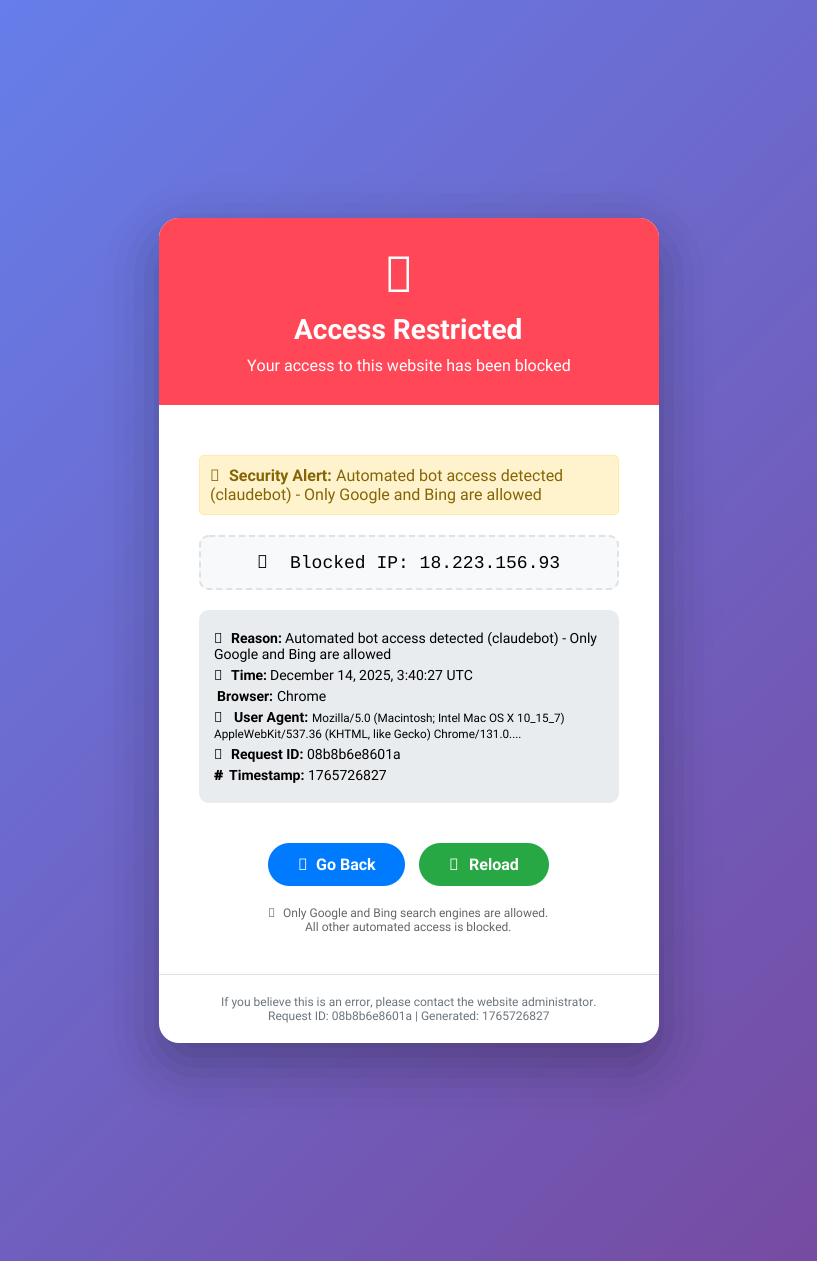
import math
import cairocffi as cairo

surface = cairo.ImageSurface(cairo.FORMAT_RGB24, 817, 1261)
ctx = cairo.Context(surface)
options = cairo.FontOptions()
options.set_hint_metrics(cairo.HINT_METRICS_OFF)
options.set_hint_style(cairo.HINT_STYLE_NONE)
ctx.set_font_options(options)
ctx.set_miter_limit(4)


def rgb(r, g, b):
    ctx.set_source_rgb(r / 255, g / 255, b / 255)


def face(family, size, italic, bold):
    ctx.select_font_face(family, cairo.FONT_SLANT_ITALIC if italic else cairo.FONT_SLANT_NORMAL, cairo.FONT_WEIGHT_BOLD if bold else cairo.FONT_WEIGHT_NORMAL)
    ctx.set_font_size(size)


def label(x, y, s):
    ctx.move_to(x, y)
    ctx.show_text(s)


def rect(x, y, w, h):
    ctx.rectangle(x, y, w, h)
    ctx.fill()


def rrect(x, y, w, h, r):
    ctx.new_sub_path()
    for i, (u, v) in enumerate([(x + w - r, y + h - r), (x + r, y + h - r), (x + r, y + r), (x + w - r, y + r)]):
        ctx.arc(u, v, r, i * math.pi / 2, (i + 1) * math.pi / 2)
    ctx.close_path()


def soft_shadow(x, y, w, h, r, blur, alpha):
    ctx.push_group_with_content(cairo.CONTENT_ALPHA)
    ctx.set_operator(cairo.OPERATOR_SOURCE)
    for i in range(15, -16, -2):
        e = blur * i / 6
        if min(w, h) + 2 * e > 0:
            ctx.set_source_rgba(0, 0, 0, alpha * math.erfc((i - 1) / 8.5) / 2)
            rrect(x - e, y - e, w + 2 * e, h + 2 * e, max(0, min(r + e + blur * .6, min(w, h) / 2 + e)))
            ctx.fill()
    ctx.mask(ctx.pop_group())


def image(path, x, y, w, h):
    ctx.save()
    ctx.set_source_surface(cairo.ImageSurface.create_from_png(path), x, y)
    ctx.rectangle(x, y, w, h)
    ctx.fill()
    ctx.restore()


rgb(255, 255, 255)
ctx.paint()
gradient = cairo.LinearGradient(-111, 111, 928, 1150)
gradient.add_color_stop_rgba(0, 0.4, 0.494, 0.918, 1)
gradient.add_color_stop_rgba(1, 0.463, 0.294, 0.635, 1)
ctx.set_source(gradient)
rect(0, 0, 817, 1261)
rgb(0, 0, 0)
soft_shadow(159, 238, 500, 825, 20, 30, 0.3)
rgb(255, 255, 255)
rrect(159, 218, 500, 825, 20)
ctx.fill()
rgb(255, 71, 87)
ctx.new_path()
ctx.move_to(179, 218)
ctx.line_to(639, 218)
ctx.curve_to(650, 218, 659, 227, 659, 238)
ctx.line_to(659, 405)
ctx.line_to(159, 405)
ctx.line_to(159, 238)
ctx.curve_to(159, 227, 168, 218, 179, 218)
ctx.close_path()
ctx.fill()
rgb(255, 255, 255)
ctx.new_path()
ctx.move_to(388.5, 292)
ctx.line_to(388.5, 256.5)
ctx.line_to(409, 256.5)
ctx.line_to(409, 292)
ctx.close_path()
ctx.move_to(391, 289.5)
ctx.line_to(406.5, 289.5)
ctx.line_to(406.5, 259)
ctx.line_to(391, 259)
ctx.close_path()
ctx.fill()
face('Roboto', 28, 0, 1)
label(294, 339, 'Access Restricted')
face('Roboto', 16, 0, 0)
label(247, 371, 'Your access to this website has been blocked')
rgb(255, 243, 205)
rrect(199.5, 455.5, 419, 59, 4.5)
ctx.fill_preserve()
rgb(255, 234, 167)
ctx.set_line_width(1)
ctx.stroke()
image('image0.png', 211, 469, 8, 12)
face('Roboto', 16, 0, 1)
rgb(133, 100, 4)
label(229, 481, 'Security Alert:')
face('Roboto', 16, 0, 0)
label(336, 481, 'Automated bot access detected')
label(210, 500, '(claudebot) - Only Google and Bing are allowed')
rgb(248, 249, 250)
rrect(199, 535, 420, 55, 10)
ctx.fill()
ctx.new_path()
ctx.move_to(209, 536)
ctx.line_to(609, 536)
ctx.curve_to(614, 536, 618, 540, 618, 545)
ctx.line_to(618, 580)
ctx.curve_to(618, 585, 614, 589, 609, 589)
ctx.line_to(209, 589)
ctx.curve_to(204, 589, 200, 585, 200, 580)
ctx.line_to(200, 545)
ctx.curve_to(200, 540, 204, 536, 209, 536)
ctx.close_path()
rgb(222, 226, 230)
ctx.set_line_width(2)
ctx.set_dash([6, 4])
ctx.stroke()
image('image1.png', 258, 555, 9, 13)
face('Liberation Mono', 18, 0, 0)
rgb(0, 0, 0)
label(290, 568, 'Blocked IP: 18.223.156.93')
rgb(233, 236, 239)
rrect(199, 610, 420, 193, 10)
ctx.fill()
image('image2.png', 215, 633, 7, 10)
face('Roboto', 14, 0, 1)
rgb(0, 0, 0)
label(231, 643, 'Reason:')
face('Roboto', 14, 0, 0)
label(285, 643, 'Automated bot access detected (claudebot) - Only')
label(214, 659, 'Google and Bing are allowed')
image('image2.png', 215, 670, 7, 10)
face('Roboto', 14, 0, 1)
label(231, 680, 'Time:')
face('Roboto', 14, 0, 0)
label(270, 680, 'December 14, 2025, 3:40:27 UTC')
face('Roboto', 14, 0, 1)
label(217, 701, 'Browser:')
face('Roboto', 14, 0, 0)
label(277, 701, 'Chrome')
image('image2.png', 215, 712, 7, 10)
face('Roboto', 14, 0, 1)
label(234, 722, 'User Agent:')
face('Roboto', 11.7, 0, 0)
label(312, 722, 'Mozilla/5.0 (Macintosh; Intel Mac OS X 10_15_7)')
label(214, 738, 'AppleWebKit/537.36 (KHTML, like Gecko) Chrome/131.0....')
image('image2.png', 215, 749, 7, 10)
face('Roboto', 14, 0, 1)
label(231, 759, 'Request ID:')
face('Roboto', 14, 0, 0)
label(307, 759, '08b8b6e8601a')
face('Noto Sans Black', 14, 0, 0)
label(214, 780, '#')
face('Roboto', 14, 0, 1)
label(229, 780, 'Timestamp:')
face('Roboto', 14, 0, 0)
label(308, 780, '1765726827')
rgb(0, 123, 255)
rrect(268, 843, 137, 43, 21.5)
ctx.fill()
image('image3.png', 299, 858, 8, 12)
face('Roboto', 16, 0, 1)
rgb(255, 255, 255)
label(316, 870, 'Go Back')
rgb(40, 167, 69)
rrect(419, 843, 130, 43, 21.5)
ctx.fill()
image('image4.png', 450, 858, 8, 12)
rgb(255, 255, 255)
label(469, 870, 'Reload')
image('image5.png', 269, 908, 6, 9)
face('Roboto', 12, 0, 0)
rgb(102, 102, 102)
label(283, 917, 'Only Google and Bing search engines are allowed.')
label(305, 931, 'All other automated access is blocked.')
rgb(222, 226, 230)
rect(159, 974, 500, 1)
rgb(108, 117, 125)
label(221, 1006, 'If you believe this is an error, please contact the website administrator.')
label(268, 1020, 'Request ID: 08b8b6e8601a | Generated: 1765726827')
surface.write_to_png('render.png')
